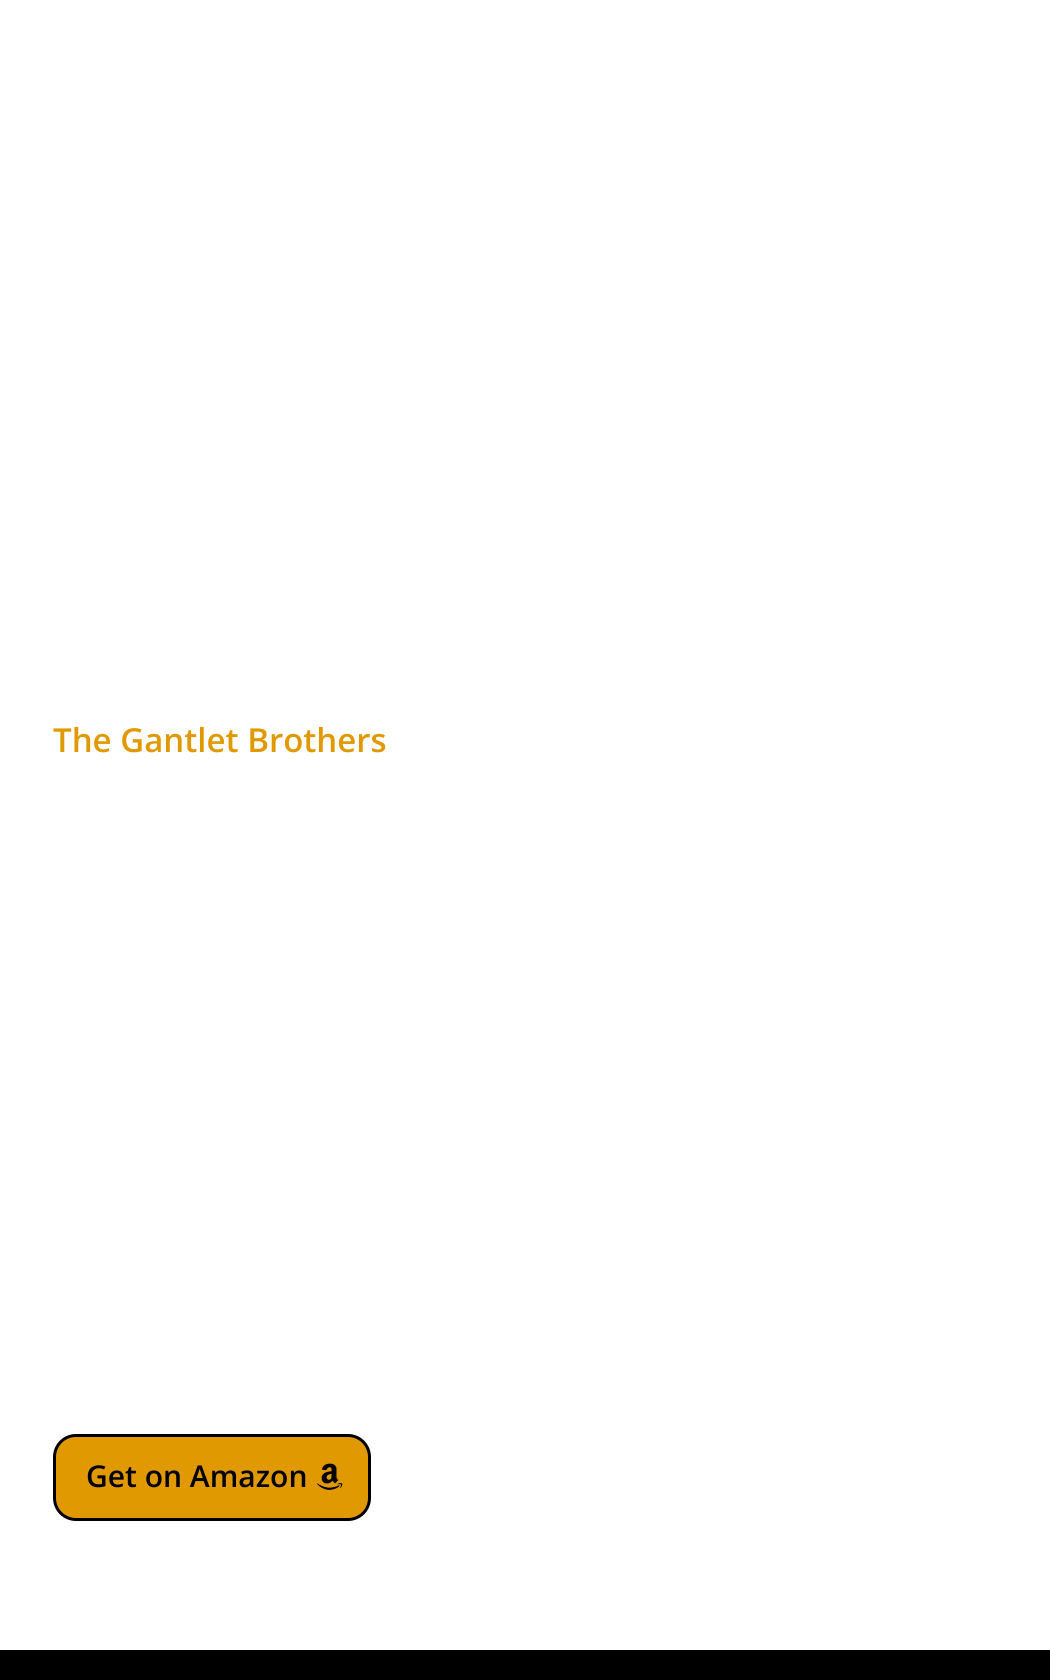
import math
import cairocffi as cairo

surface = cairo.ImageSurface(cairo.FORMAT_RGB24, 1050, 1680)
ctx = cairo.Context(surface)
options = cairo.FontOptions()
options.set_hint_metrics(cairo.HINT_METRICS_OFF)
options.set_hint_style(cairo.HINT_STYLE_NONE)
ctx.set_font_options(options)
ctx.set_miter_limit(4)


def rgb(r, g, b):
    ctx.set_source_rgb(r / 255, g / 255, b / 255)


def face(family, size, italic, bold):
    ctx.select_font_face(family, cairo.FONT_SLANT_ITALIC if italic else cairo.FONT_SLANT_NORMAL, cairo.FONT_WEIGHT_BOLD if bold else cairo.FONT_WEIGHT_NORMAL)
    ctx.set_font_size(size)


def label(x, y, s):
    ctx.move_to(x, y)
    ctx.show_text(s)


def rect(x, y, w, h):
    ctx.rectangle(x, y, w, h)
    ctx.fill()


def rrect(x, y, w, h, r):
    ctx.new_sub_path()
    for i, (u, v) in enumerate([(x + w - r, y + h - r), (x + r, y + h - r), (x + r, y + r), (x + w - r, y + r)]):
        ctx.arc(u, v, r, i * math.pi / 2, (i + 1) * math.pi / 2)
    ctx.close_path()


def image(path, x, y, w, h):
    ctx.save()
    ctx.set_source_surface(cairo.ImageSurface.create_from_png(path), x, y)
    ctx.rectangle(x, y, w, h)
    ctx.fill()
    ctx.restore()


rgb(255, 255, 255)
ctx.paint()
face('Open Sans SemiBold', 33, 0, 0)
rgb(224, 153, 0)
label(53, 752, 'The Gantlet Brothers')
rrect(54.5, 1435.5, 315, 84, 21.5)
ctx.fill_preserve()
rgb(0, 0, 0)
ctx.set_line_width(3)
ctx.stroke()
face('Open Sans SemiBold', 30, 0, 0)
label(86, 1487, 'Get on Amazon')
image('image0.png', 317, 1463, 26, 27)
rect(0, 1650, 1050, 30)
surface.write_to_png('render.png')
